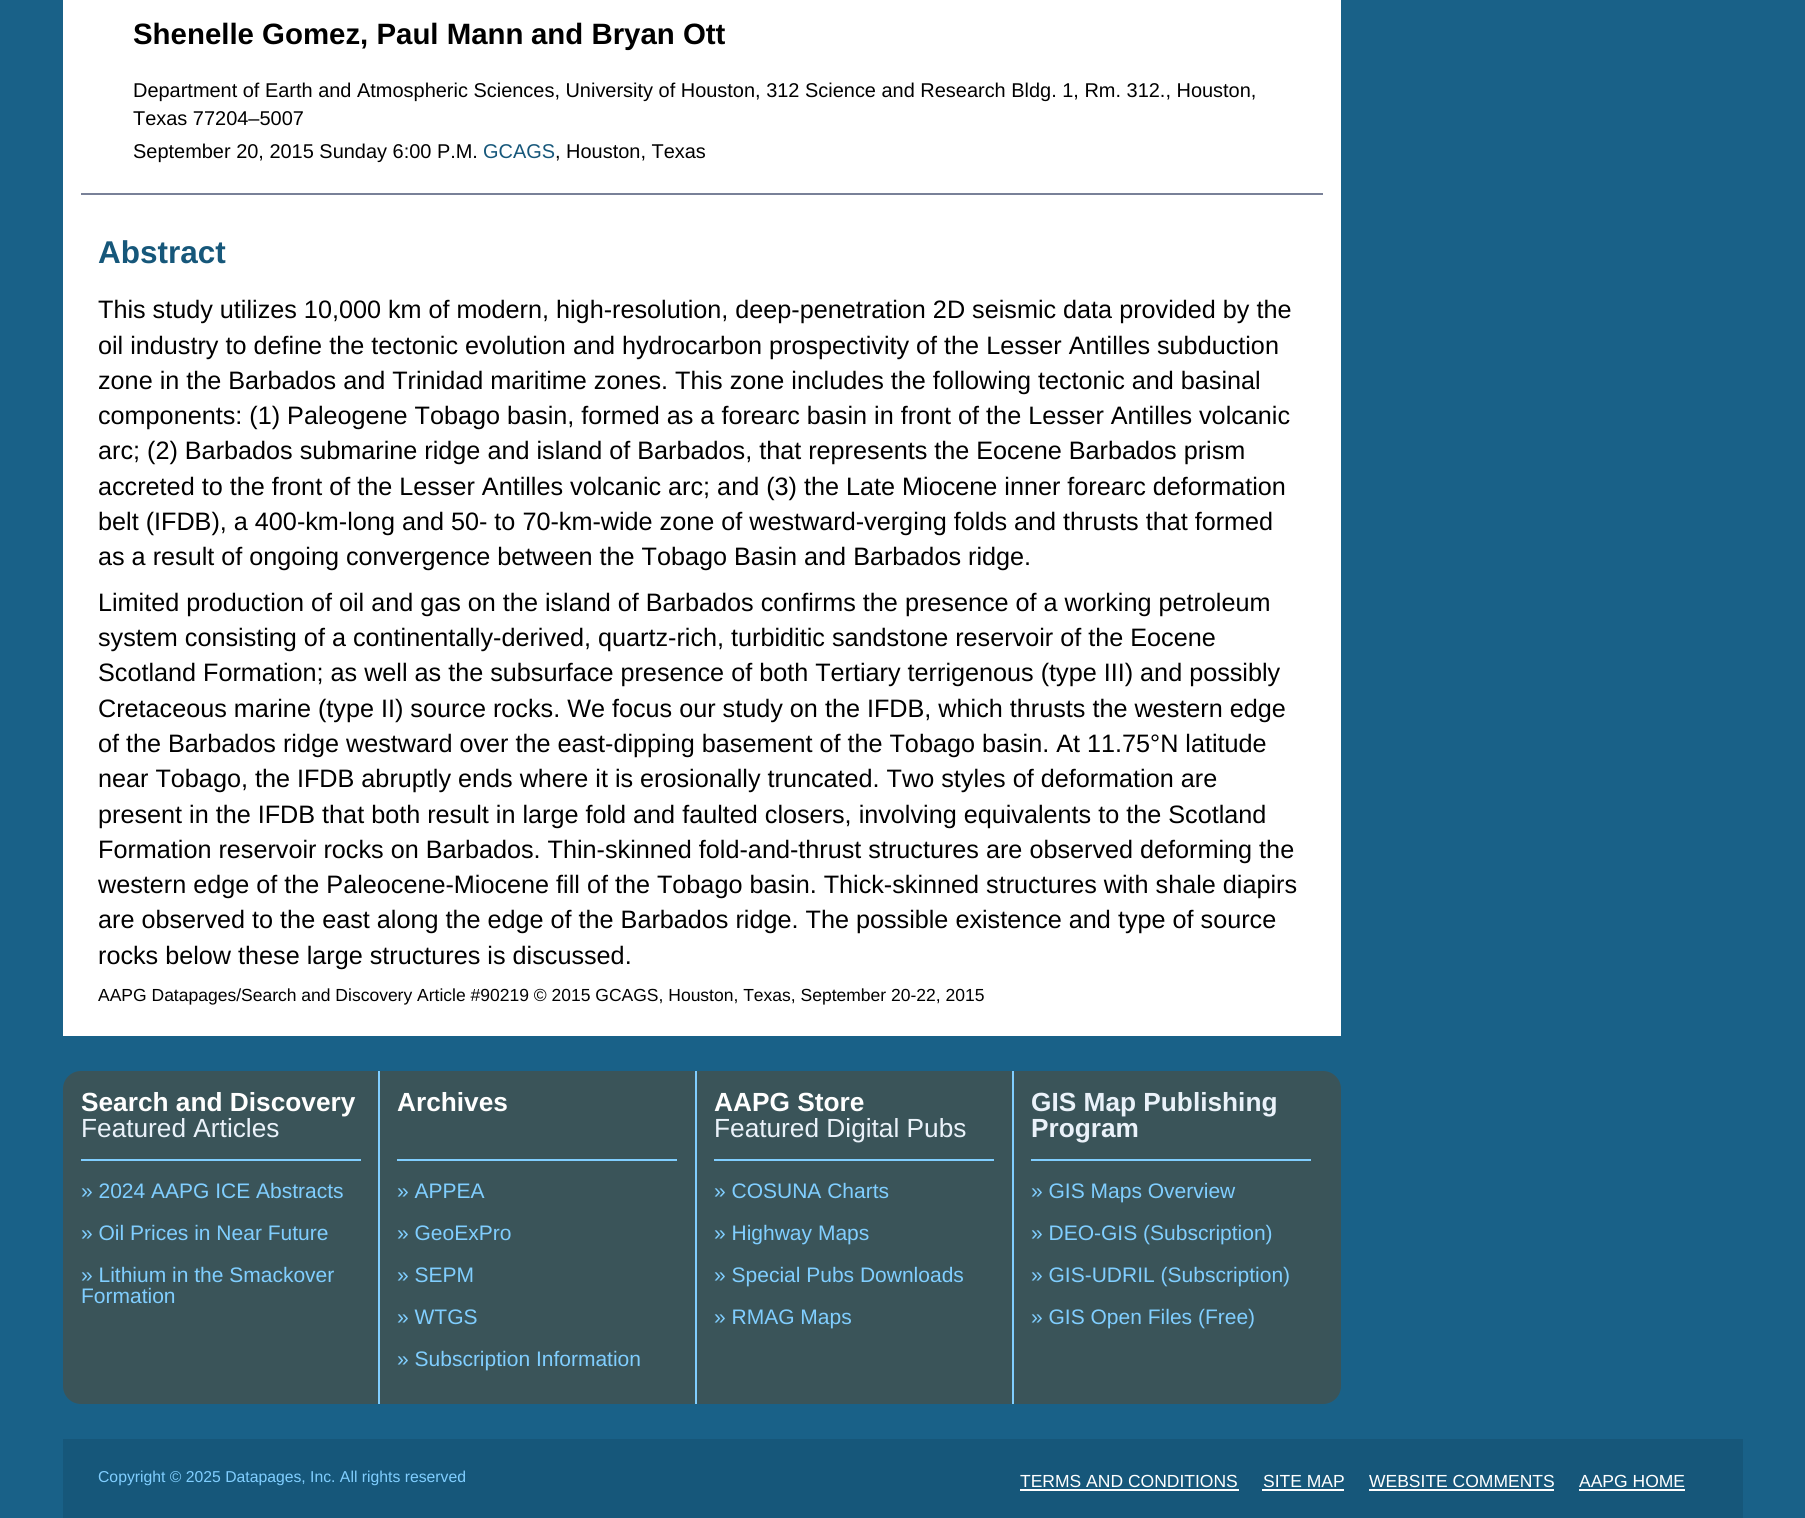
import math
import cairocffi as cairo

surface = cairo.ImageSurface(cairo.FORMAT_RGB24, 1805, 1518)
ctx = cairo.Context(surface)
options = cairo.FontOptions()
options.set_hint_metrics(cairo.HINT_METRICS_OFF)
options.set_hint_style(cairo.HINT_STYLE_NONE)
ctx.set_font_options(options)
ctx.set_miter_limit(4)


def rgb(r, g, b):
    ctx.set_source_rgb(r / 255, g / 255, b / 255)


def face(family, size, italic, bold):
    ctx.select_font_face(family, cairo.FONT_SLANT_ITALIC if italic else cairo.FONT_SLANT_NORMAL, cairo.FONT_WEIGHT_BOLD if bold else cairo.FONT_WEIGHT_NORMAL)
    ctx.set_font_size(size)


def label(x, y, s):
    ctx.move_to(x, y)
    ctx.show_text(s)


def rect(x, y, w, h):
    ctx.rectangle(x, y, w, h)
    ctx.fill()


def rrect(x, y, w, h, r):
    ctx.new_sub_path()
    for i, (u, v) in enumerate([(x + w - r, y + h - r), (x + r, y + h - r), (x + r, y + r), (x + w - r, y + r)]):
        ctx.arc(u, v, r, i * math.pi / 2, (i + 1) * math.pi / 2)
    ctx.close_path()


rgb(25, 97, 136)
ctx.paint()
rgb(255, 255, 255)
rect(63, 0, 1278, 1036)
rgb(121, 129, 152)
rect(81, 193, 1242, 2)
face('Liberation Sans', 29.4, 0, 1)
rgb(0, 0, 0)
label(133, 44, 'Shenelle Gomez, Paul Mann')
label(531, 44, 'and Bryan Ott')
face('Liberation Sans', 19.95, 0, 0)
label(133, 97, 'Department of Earth and Atmospheric Sciences, University of Houston, 312 Science and Research Bldg. 1, Rm. 312., Houston,')
label(133, 125, 'Texas 77204–5007')
label(133, 158, 'September 20, 2015 Sunday 6:00 P.M.')
rgb(22, 87, 122)
label(483, 158, 'GCAGS')
rgb(0, 0, 0)
label(555, 158, ', Houston, Texas')
face('Liberation Sans', 31.5, 0, 1)
rgb(22, 87, 122)
label(98, 263, 'Abstract')
face('Liberation Sans', 25.2, 0, 0)
rgb(0, 0, 0)
label(98, 318, 'This study utilizes 10,000 km of modern, high-resolution, deep-penetration 2D seismic data provided by the')
label(98, 354, 'oil industry to define the tectonic evolution and hydrocarbon prospectivity of the Lesser Antilles subduction')
label(98, 389, 'zone in the Barbados and Trinidad maritime zones. This zone includes the following tectonic and basinal')
label(98, 424, 'components: (1) Paleogene Tobago basin, formed as a forearc basin in front of the Lesser Antilles volcanic')
label(98, 459, 'arc; (2) Barbados submarine ridge and island of Barbados, that represents the Eocene Barbados prism')
label(98, 495, 'accreted to the front of the Lesser Antilles volcanic arc; and (3) the Late Miocene inner forearc deformation')
label(98, 530, 'belt (IFDB), a 400-km-long and 50- to 70-km-wide zone of westward-verging folds and thrusts that formed')
label(98, 565, 'as a result of ongoing convergence between the Tobago Basin and Barbados ridge.')
label(98, 611, 'Limited production of oil and gas on the island of Barbados confirms the presence of a working petroleum')
label(98, 646, 'system consisting of a continentally-derived, quartz-rich, turbiditic sandstone reservoir of the Eocene')
label(98, 681, 'Scotland Formation; as well as the subsurface presence of both Tertiary terrigenous (type III) and possibly')
label(98, 717, 'Cretaceous marine (type II) source rocks. We focus our study on the IFDB, which thrusts the western edge')
label(98, 752, 'of the Barbados ridge westward over the east-dipping basement of the Tobago basin. At 11.75°N latitude')
label(98, 787, 'near Tobago, the IFDB abruptly ends where it is erosionally truncated. Two styles of deformation are')
label(98, 823, 'present in the IFDB that both result in large fold and faulted closers, involving equivalents to the Scotland')
label(98, 858, 'Formation reservoir rocks on Barbados. Thin-skinned fold-and-thrust structures are observed deforming the')
label(98, 893, 'western edge of the Paleocene-Miocene fill of the Tobago basin. Thick-skinned structures with shale diapirs')
label(98, 928, 'are observed to the east along the edge of the Barbados ridge. The possible existence and type of source')
label(98, 964, 'rocks below these large structures is discussed.')
face('Liberation Sans', 17.5, 0, 0)
label(98, 1001, 'AAPG Datapages/Search and Discovery Article #90219 © 2015 GCAGS, Houston, Texas, September 20-22, 2015')
rgb(58, 84, 89)
rrect(63, 1071, 1278, 333, 18)
ctx.fill()
rgb(128, 206, 255)
rect(81, 1159, 280, 2)
face('Liberation Sans', 26.25, 0, 1)
rgb(255, 255, 255)
label(81, 1111, 'Search and Discovery')
face('Liberation Sans', 26.25, 0, 0)
rgb(234, 242, 250)
label(81, 1137, 'Featured Articles')
face('Liberation Sans', 21, 0, 0)
rgb(128, 206, 255)
label(81, 1198, '» 2024 AAPG ICE Abstracts')
label(81, 1240, '» Oil Prices in Near Future')
label(81, 1282, '» Lithium in the Smackover')
label(81, 1303, 'Formation')
rect(378, 1071, 2, 333)
rect(397, 1159, 280, 2)
face('Liberation Sans', 26.25, 0, 1)
rgb(255, 255, 255)
label(397, 1111, 'Archives')
face('Liberation Sans', 21, 0, 0)
rgb(128, 206, 255)
label(397, 1198, '» APPEA')
label(397, 1240, '» GeoExPro')
label(397, 1282, '» SEPM')
label(397, 1324, '» WTGS')
label(397, 1366, '» Subscription Information')
rect(695, 1071, 2, 333)
rect(714, 1159, 280, 2)
face('Liberation Sans', 26.25, 0, 1)
rgb(255, 255, 255)
label(714, 1111, 'AAPG Store')
face('Liberation Sans', 26.25, 0, 0)
rgb(234, 242, 250)
label(714, 1137, 'Featured Digital Pubs')
face('Liberation Sans', 21, 0, 0)
rgb(128, 206, 255)
label(714, 1198, '» COSUNA Charts')
label(714, 1240, '» Highway Maps')
label(714, 1282, '» Special Pubs Downloads')
label(714, 1324, '» RMAG Maps')
rect(1012, 1071, 2, 333)
rect(1031, 1159, 280, 2)
face('Liberation Sans', 26.25, 0, 1)
rgb(234, 242, 250)
label(1031, 1111, 'GIS Map Publishing')
label(1031, 1137, 'Program')
face('Liberation Sans', 21, 0, 0)
rgb(128, 206, 255)
label(1031, 1198, '» GIS Maps Overview')
label(1031, 1240, '» DEO-GIS (Subscription)')
label(1031, 1282, '» GIS-UDRIL (Subscription)')
label(1031, 1324, '» GIS Open Files (Free)')
rgb(22, 87, 122)
rect(63, 1439, 1680, 79)
face('Liberation Sans', 15.75, 0, 0)
rgb(128, 206, 255)
label(98, 1482, 'Copyright © 2025 Datapages, Inc. All rights reserved')
face('Liberation Sans', 17.5, 0, 0)
rgb(255, 255, 255)
label(1020, 1487, 'TERMS AND CONDITIONS')
rect(1020, 1489, 219, 2)
label(1263, 1487, 'SITE MAP')
rect(1262, 1489, 82, 2)
label(1369, 1487, 'WEBSITE COMMENTS')
rect(1369, 1489, 185, 2)
label(1579, 1487, 'AAPG HOME')
rect(1579, 1489, 106, 2)
surface.write_to_png('render.png')
